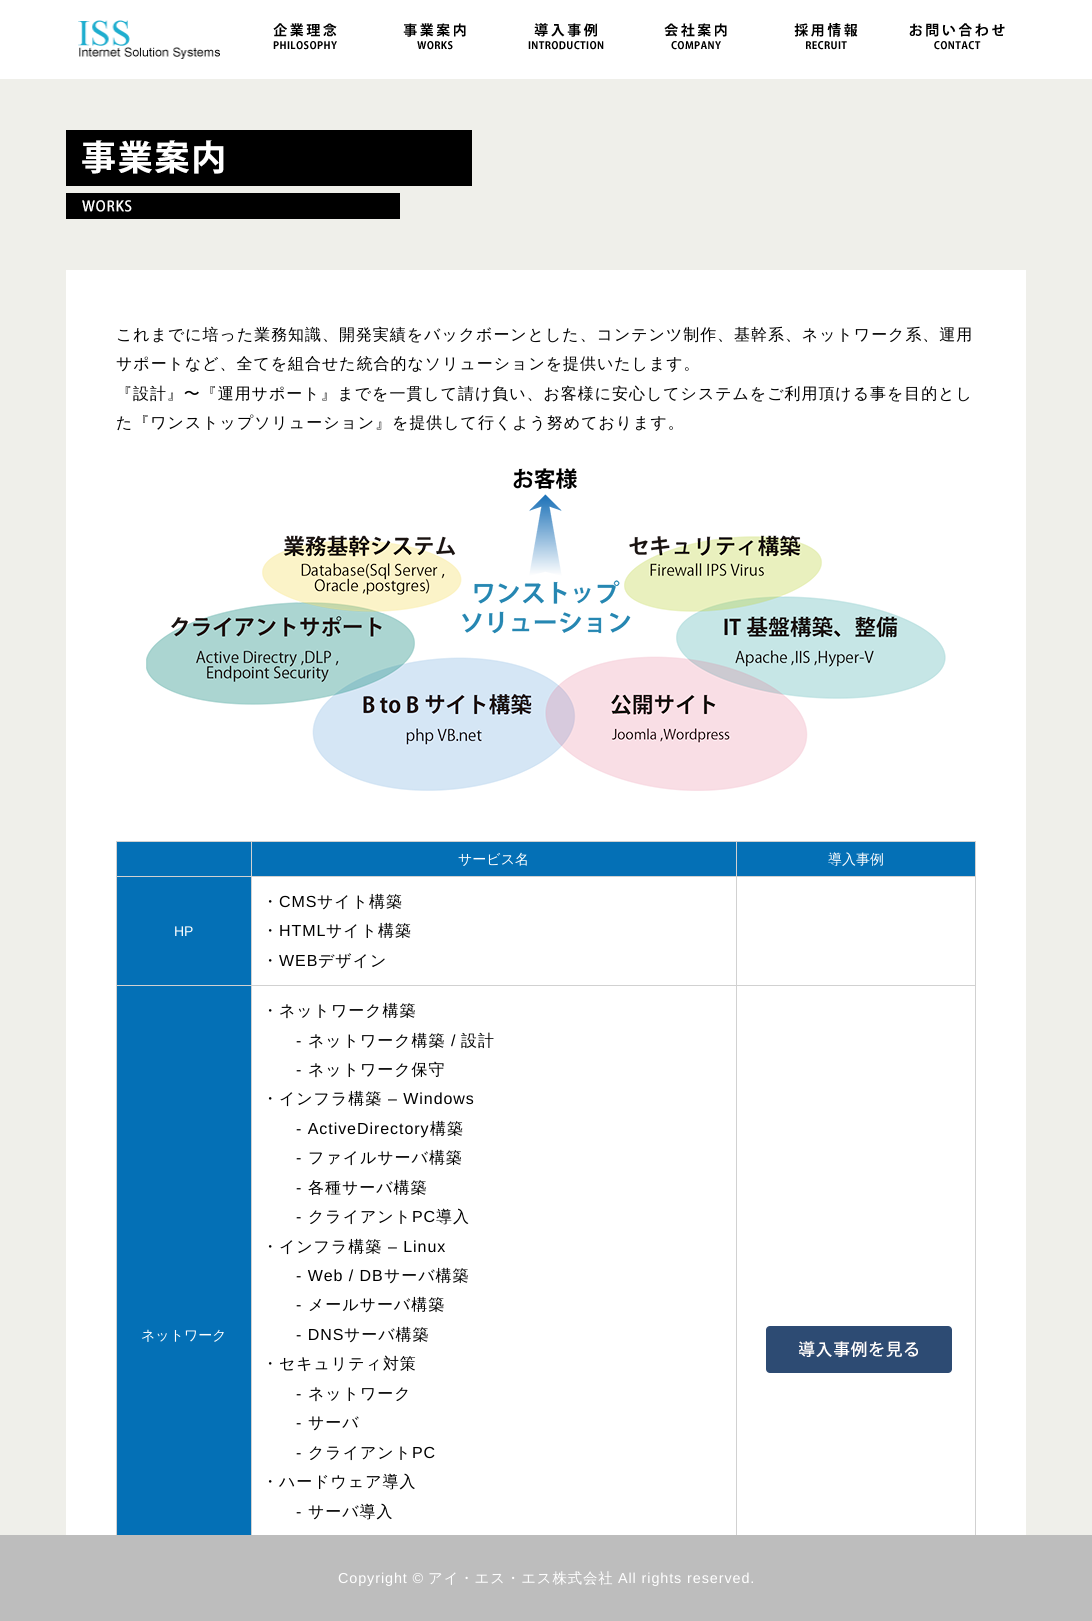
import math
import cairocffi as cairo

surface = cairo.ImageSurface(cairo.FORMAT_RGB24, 1092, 1621)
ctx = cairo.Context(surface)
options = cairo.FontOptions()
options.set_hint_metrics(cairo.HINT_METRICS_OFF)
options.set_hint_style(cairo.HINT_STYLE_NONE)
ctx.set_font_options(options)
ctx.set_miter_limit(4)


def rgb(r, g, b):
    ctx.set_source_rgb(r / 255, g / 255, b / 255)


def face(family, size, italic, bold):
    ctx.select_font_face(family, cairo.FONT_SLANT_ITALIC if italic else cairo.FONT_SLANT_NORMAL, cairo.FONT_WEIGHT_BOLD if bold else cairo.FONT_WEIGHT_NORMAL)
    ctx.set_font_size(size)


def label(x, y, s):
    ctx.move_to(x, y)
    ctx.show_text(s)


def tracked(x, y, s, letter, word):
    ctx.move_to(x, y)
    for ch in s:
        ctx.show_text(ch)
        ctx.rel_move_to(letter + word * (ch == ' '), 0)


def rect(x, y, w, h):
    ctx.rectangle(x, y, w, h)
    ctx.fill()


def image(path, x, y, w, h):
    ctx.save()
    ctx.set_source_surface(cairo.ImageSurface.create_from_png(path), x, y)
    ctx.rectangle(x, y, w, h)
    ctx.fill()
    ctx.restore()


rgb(239, 239, 234)
ctx.paint()
rgb(255, 255, 255)
rect(0, 0, 1092, 79)
image('image0.png', 78, 20, 142, 39)
image('image1.png', 273, 23, 64, 27)
image('image2.png', 403, 23, 63, 27)
image('image3.png', 528, 23, 76, 27)
image('image4.png', 664, 23, 63, 27)
image('image5.png', 794, 23, 64, 27)
image('image6.png', 909, 23, 96, 27)
image('image7.png', 66, 130, 406, 89)
rect(66, 270, 960, 1265)
face('WenQuanYi Zen Hei Medium', 16, 0, 0)
rgb(0, 0, 0)
tracked(116, 340, 'これまでに培った業務知識、開発実績をバックボーンとした、コンテンツ制作、基幹系、ネットワーク系、運用', 0.95, 0)
tracked(116, 369, 'サポートなど、全てを組合せた統合的なソリューションを提供いたします。', 0.95, 0)
tracked(116, 399, '『設計』〜『運用サポート』までを一貫して請け負い、お客様に安心してシステムをご利用頂ける事を目的とし', 0.95, 0)
tracked(116, 428, 'た『ワンストップソリューション』を提供して行くよう努めております。', 0.95, 0)
image('image8.png', 146, 468, 800, 323)
rgb(209, 209, 209)
rect(116, 841, 860, 1)
rect(975, 841, 1, 694)
rect(116, 841, 1, 694)
rgb(4, 112, 182)
rect(117, 842, 134, 34)
rect(252, 842, 484, 34)
face('WenQuanYi Zen Hei Medium', 14, 0, 0)
rgb(255, 255, 255)
label(458, 864, 'サービス名')
rgb(4, 112, 182)
rect(737, 842, 238, 34)
rgb(255, 255, 255)
label(828, 864, '導入事例')
rgb(209, 209, 209)
rect(116, 876, 860, 1)
rgb(4, 112, 182)
rect(117, 877, 134, 108)
face('Liberation Sans', 14, 0, 0)
rgb(255, 255, 255)
label(174, 936, 'HP')
face('WenQuanYi Zen Hei Medium', 16, 0, 0)
rgb(0, 0, 0)
tracked(262, 907, '・', 0.95, 0)
face('Liberation Sans', 16, 0, 0)
tracked(279, 907, 'CMS', 0.95, 0)
face('WenQuanYi Zen Hei Medium', 16, 0, 0)
tracked(317, 907, 'サイト構築', 0.95, 0)
tracked(262, 936, '・', 0.95, 0)
face('Liberation Sans', 16, 0, 0)
tracked(279, 936, 'HTML', 0.95, 0)
face('WenQuanYi Zen Hei Medium', 16, 0, 0)
tracked(326, 936, 'サイト構築', 0.95, 0)
tracked(262, 966, '・', 0.95, 0)
face('Liberation Sans', 16, 0, 0)
tracked(279, 966, 'WEB', 0.95, 0)
face('WenQuanYi Zen Hei Medium', 16, 0, 0)
tracked(318, 966, 'デザイン', 0.95, 0)
rgb(209, 209, 209)
rect(116, 985, 860, 1)
rect(736, 841, 1, 694)
image('image9.png', 766, 1326, 186, 47)
rgb(4, 112, 182)
rect(117, 986, 134, 549)
face('WenQuanYi Zen Hei Medium', 14, 0, 0)
rgb(255, 255, 255)
label(141, 1340, 'ネットワーク')
rgb(209, 209, 209)
rect(251, 841, 1, 694)
face('WenQuanYi Zen Hei Medium', 16, 0, 0)
rgb(0, 0, 0)
tracked(262, 1016, '・ネットワーク構築', 0.95, 0)
face('Liberation Sans', 16, 0, 0)
tracked(296, 1046, '-', 0.95, 0)
face('WenQuanYi Zen Hei Medium', 16, 0, 0)
tracked(308, 1046, 'ネットワーク構築', 0.95, 0)
face('Liberation Sans', 16, 0, 0)
tracked(451, 1046, '/', 0.95, 0)
face('WenQuanYi Zen Hei Medium', 16, 0, 0)
tracked(461, 1046, '設計', 0.95, 0)
face('Liberation Sans', 16, 0, 0)
tracked(296, 1075, '-', 0.95, 0)
face('WenQuanYi Zen Hei Medium', 16, 0, 0)
tracked(308, 1075, 'ネットワーク保守', 0.95, 0)
tracked(262, 1104, '・インフラ構築', 0.95, 0)
face('Liberation Sans', 16, 0, 0)
tracked(388, 1104, '– Windows', 0.95, 0)
tracked(296, 1134, '- ActiveDirectory', 0.95, 0)
face('WenQuanYi Zen Hei Medium', 16, 0, 0)
tracked(430, 1134, '構築', 0.95, 0)
face('Liberation Sans', 16, 0, 0)
tracked(296, 1163, '-', 0.95, 0)
face('WenQuanYi Zen Hei Medium', 16, 0, 0)
tracked(308, 1163, 'ファイルサーバ構築', 0.95, 0)
face('Liberation Sans', 16, 0, 0)
tracked(296, 1193, '-', 0.95, 0)
face('WenQuanYi Zen Hei Medium', 16, 0, 0)
tracked(308, 1193, '各種サーバ構築', 0.95, 0)
face('Liberation Sans', 16, 0, 0)
tracked(296, 1222, '-', 0.95, 0)
face('WenQuanYi Zen Hei Medium', 16, 0, 0)
tracked(308, 1222, 'クライアント', 0.95, 0)
face('Liberation Sans', 16, 0, 0)
tracked(412, 1222, 'PC', 0.95, 0)
face('WenQuanYi Zen Hei Medium', 16, 0, 0)
tracked(436, 1222, '導入', 0.95, 0)
tracked(262, 1252, '・インフラ構築', 0.95, 0)
face('Liberation Sans', 16, 0, 0)
tracked(388, 1252, '– Linux', 0.95, 0)
tracked(296, 1281, '- Web / DB', 0.95, 0)
face('WenQuanYi Zen Hei Medium', 16, 0, 0)
tracked(384, 1281, 'サーバ構築', 0.95, 0)
face('Liberation Sans', 16, 0, 0)
tracked(296, 1310, '-', 0.95, 0)
face('WenQuanYi Zen Hei Medium', 16, 0, 0)
tracked(308, 1310, 'メールサーバ構築', 0.95, 0)
face('Liberation Sans', 16, 0, 0)
tracked(296, 1340, '- DNS', 0.95, 0)
face('WenQuanYi Zen Hei Medium', 16, 0, 0)
tracked(344, 1340, 'サーバ構築', 0.95, 0)
tracked(262, 1369, '・セキュリティ対策', 0.95, 0)
face('Liberation Sans', 16, 0, 0)
tracked(296, 1399, '-', 0.95, 0)
face('WenQuanYi Zen Hei Medium', 16, 0, 0)
tracked(308, 1399, 'ネットワーク', 0.95, 0)
face('Liberation Sans', 16, 0, 0)
tracked(296, 1428, '-', 0.95, 0)
face('WenQuanYi Zen Hei Medium', 16, 0, 0)
tracked(308, 1428, 'サーバ', 0.95, 0)
face('Liberation Sans', 16, 0, 0)
tracked(296, 1458, '-', 0.95, 0)
face('WenQuanYi Zen Hei Medium', 16, 0, 0)
tracked(308, 1458, 'クライアント', 0.95, 0)
face('Liberation Sans', 16, 0, 0)
tracked(412, 1458, 'PC', 0.95, 0)
face('WenQuanYi Zen Hei Medium', 16, 0, 0)
tracked(262, 1487, '・ハードウェア導入', 0.95, 0)
face('Liberation Sans', 16, 0, 0)
tracked(296, 1517, '-', 0.95, 0)
face('WenQuanYi Zen Hei Medium', 16, 0, 0)
tracked(308, 1517, 'サーバ導入', 0.95, 0)
rgb(189, 189, 189)
rect(0, 1535, 1092, 86)
face('Liberation Sans', 14.4, 0, 0)
rgb(255, 255, 255)
tracked(338, 1583, 'Copyright ©', 0.9, 0)
face('WenQuanYi Zen Hei Medium', 14.4, 0, 0)
tracked(428, 1583, 'アイ・エス・エス株式会社', 0.9, 0)
face('Liberation Sans', 14.4, 0, 0)
tracked(618, 1583, 'All rights reserved.', 0.9, 0)
surface.write_to_png('render.png')
